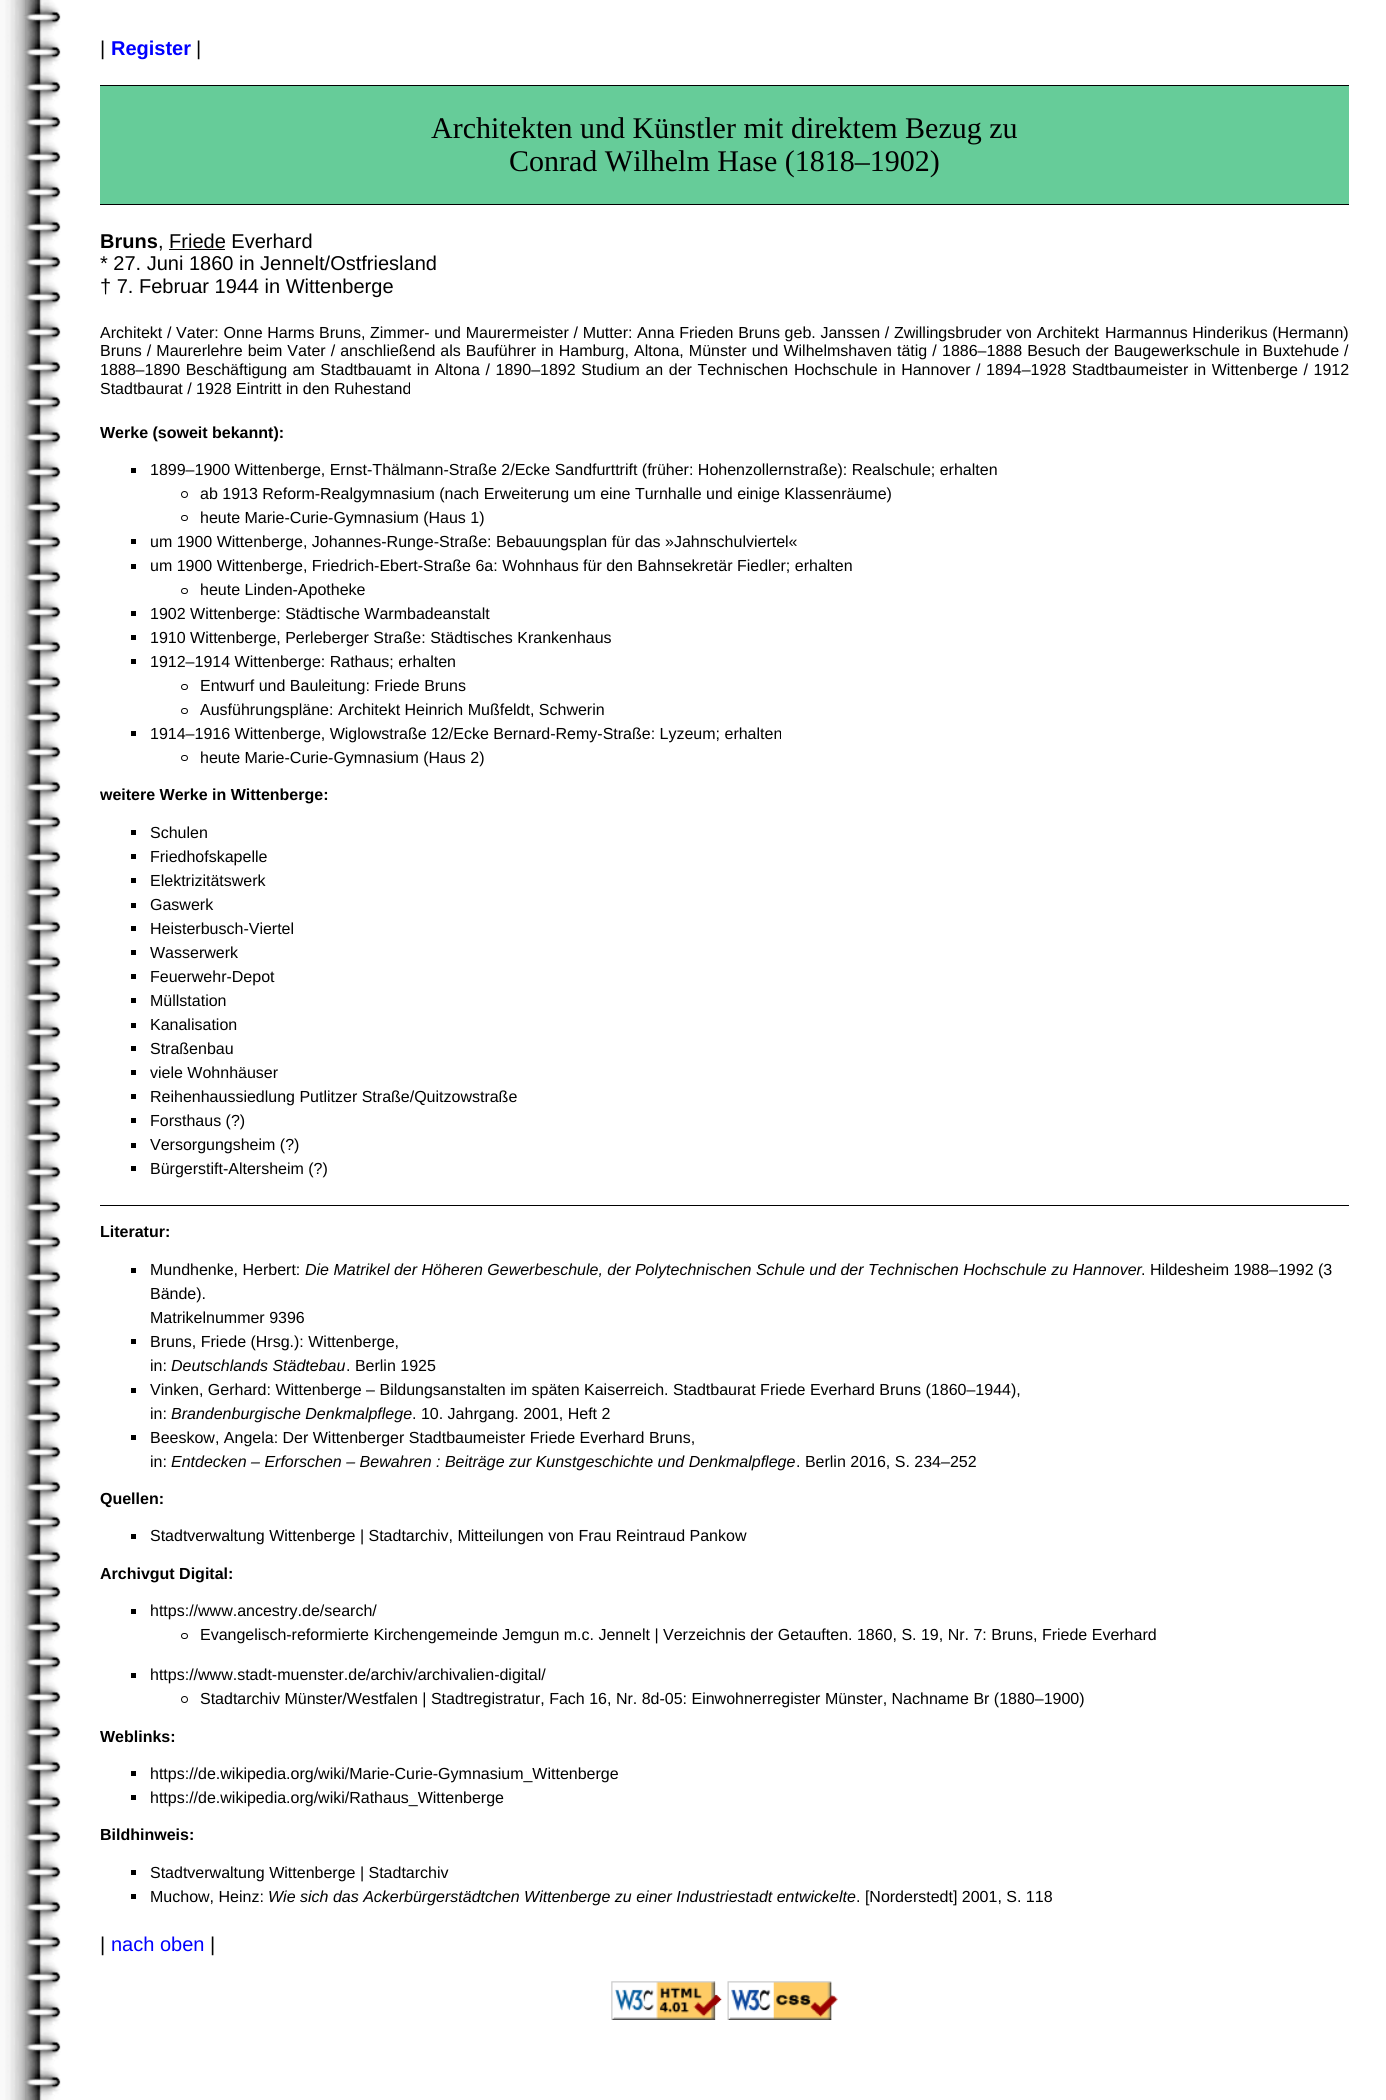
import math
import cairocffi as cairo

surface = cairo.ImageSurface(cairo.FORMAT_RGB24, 1386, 2100)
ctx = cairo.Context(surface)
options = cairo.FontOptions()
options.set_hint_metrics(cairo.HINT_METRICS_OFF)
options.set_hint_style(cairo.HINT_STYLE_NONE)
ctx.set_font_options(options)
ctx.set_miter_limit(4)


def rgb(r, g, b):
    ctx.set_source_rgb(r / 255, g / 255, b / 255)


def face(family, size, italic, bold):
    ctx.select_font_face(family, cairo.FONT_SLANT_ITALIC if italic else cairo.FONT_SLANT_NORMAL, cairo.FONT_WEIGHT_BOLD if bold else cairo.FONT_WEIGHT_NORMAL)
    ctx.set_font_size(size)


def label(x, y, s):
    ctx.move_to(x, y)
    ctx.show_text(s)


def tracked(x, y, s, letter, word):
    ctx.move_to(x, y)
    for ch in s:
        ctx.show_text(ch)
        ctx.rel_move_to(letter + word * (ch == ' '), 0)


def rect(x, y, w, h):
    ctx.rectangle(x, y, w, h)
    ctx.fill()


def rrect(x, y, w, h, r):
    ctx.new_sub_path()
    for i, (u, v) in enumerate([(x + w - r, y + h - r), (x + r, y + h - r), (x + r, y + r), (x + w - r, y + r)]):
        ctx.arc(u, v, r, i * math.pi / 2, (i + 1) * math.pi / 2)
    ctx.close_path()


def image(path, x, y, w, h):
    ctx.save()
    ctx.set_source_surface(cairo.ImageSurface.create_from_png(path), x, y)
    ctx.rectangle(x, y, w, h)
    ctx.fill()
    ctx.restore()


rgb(255, 255, 255)
ctx.paint()
image('image0.png', 0, 0, 61, 2100)
face('Liberation Sans', 20, 0, 0)
rgb(0, 0, 0)
label(100, 55, '|')
face('Liberation Sans', 20, 0, 1)
rgb(0, 0, 255)
label(111, 55, 'Register')
face('Liberation Sans', 20, 0, 0)
rgb(0, 0, 0)
label(196, 55, '|')
rgb(102, 204, 153)
rect(100, 86, 1249, 118)
rgb(0, 0, 0)
rect(100, 85, 1249, 1)
rect(100, 204, 1249, 1)
face('Liberation Serif', 30, 0, 0)
label(431, 138, 'Architekten und Künstler mit direktem Bezug zu')
label(509, 171, 'Conrad Wilhelm Hase (1818–1902)')
face('Liberation Sans', 20, 0, 1)
label(100, 248, 'Bruns')
face('Liberation Sans', 20, 0, 0)
label(158, 248, ', Friede Everhard')
rect(169, 249, 56, 1)
label(100, 270, '* 27. Juni 1860 in Jennelt/Ostfriesland')
label(100, 293, '† 7. Februar 1944 in Wittenberge')
face('Liberation Sans', 16, 0, 0)
tracked(100, 338, 'Architekt / Vater: Onne Harms Bruns, Zimmer- und Maurermeister / Mutter: Anna Frieden Bruns geb. Janssen / Zwillingsbruder von Architekt', 0, 0.25)
label(1105, 338, 'Harmannus Hinderikus (Hermann)')
tracked(100, 356, 'Bruns / Maurerlehre beim Vater / anschließend als Bauführer in Hamburg, Altona, Münster und Wilhelmshaven tätig /', 0, 0.6)
tracked(942, 356, '1886–1888 Besuch der Baugewerkschule in Buxtehude /', 0, 0.6)
tracked(100, 375, '1888–1890 Beschäftigung am Stadtbauamt in Altona / 1890–1892 Studium an der Technischen', 0, 1.1)
tracked(794, 375, 'Hochschule in Hannover / 1894–1928 Stadtbaumeister in Wittenberge / 1912', 0, 1.1)
label(100, 394, 'Stadtbaurat / 1928 Eintritt in den Ruhestand')
face('Liberation Sans', 16, 0, 1)
label(100, 438, 'Werke (soweit bekannt):')
rect(131, 468, 5, 5)
face('Liberation Sans', 16, 0, 0)
label(150, 475, '1899–1900 Wittenberge, Ernst-Thälmann-Straße 2/Ecke Sandfurttrift (früher: Hohenzollernstraße): Realschule; erhalten')
ctx.new_path()
ctx.arc(184.5, 494.5, 3, 0, 2 * math.pi)
ctx.set_line_width(1)
ctx.stroke()
label(200, 499, 'ab 1913 Reform-Realgymnasium (nach Erweiterung um eine Turnhalle und einige Klassenräume)')
rrect(181.5, 515.5, 6, 5, 2.5)
ctx.stroke()
label(200, 523, 'heute Marie-Curie-Gymnasium (Haus 1)')
rect(131, 539, 5, 5)
label(150, 547, 'um 1900 Wittenberge, Johannes-Runge-Straße: Bebauungsplan für das »Jahnschulviertel«')
rect(131, 564, 5, 5)
label(150, 571, 'um 1900 Wittenberge, Friedrich-Ebert-Straße 6a: Wohnhaus für den Bahnsekretär Fiedler; erhalten')
rrect(181.5, 588.5, 6, 5, 2.5)
ctx.stroke()
label(200, 595, 'heute Linden-Apotheke')
rect(131, 611, 5, 5)
label(150, 619, '1902 Wittenberge: Städtische Warmbadeanstalt')
rect(131, 635, 5, 5)
label(150, 643, '1910 Wittenberge, Perleberger Straße: Städtisches Krankenhaus')
rect(131, 659, 5, 5)
label(150, 667, '1912–1914 Wittenberge: Rathaus; erhalten')
rrect(181.5, 684.5, 6, 5, 2.5)
ctx.stroke()
label(200, 691, 'Entwurf und Bauleitung: Friede Bruns')
rrect(181.5, 708.5, 6, 5, 2.5)
ctx.stroke()
label(200, 715, 'Ausführungspläne: Architekt Heinrich Mußfeldt, Schwerin')
rect(131, 731, 5, 5)
label(150, 739, '1914–1916 Wittenberge, Wiglowstraße 12/Ecke Bernard-Remy-Straße: Lyzeum; erhalten')
rrect(181.5, 755.5, 6, 5, 2.5)
ctx.stroke()
label(200, 763, 'heute Marie-Curie-Gymnasium (Haus 2)')
face('Liberation Sans', 16, 0, 1)
label(100, 800, 'weitere Werke in Wittenberge:')
rect(131, 830, 5, 5)
face('Liberation Sans', 16, 0, 0)
label(150, 838, 'Schulen')
rect(131, 854, 5, 5)
label(150, 862, 'Friedhofskapelle')
rect(131, 878, 5, 5)
label(150, 886, 'Elektrizitätswerk')
rect(131, 903, 5, 5)
label(150, 910, 'Gaswerk')
rect(131, 926, 5, 5)
label(150, 934, 'Heisterbusch-Viertel')
rect(131, 950, 5, 5)
label(150, 958, 'Wasserwerk')
rect(131, 974, 5, 5)
label(150, 982, 'Feuerwehr-Depot')
rect(131, 998, 5, 5)
label(150, 1006, 'Müllstation')
rect(131, 1023, 5, 5)
label(150, 1030, 'Kanalisation')
rect(131, 1046, 5, 5)
label(150, 1054, 'Straßenbau')
rect(131, 1070, 5, 5)
label(150, 1078, 'viele Wohnhäuser')
rect(131, 1094, 5, 5)
label(150, 1102, 'Reihenhaussiedlung Putlitzer Straße/Quitzowstraße')
rect(131, 1118, 5, 5)
label(150, 1126, 'Forsthaus (?)')
rect(131, 1143, 5, 5)
label(150, 1150, 'Versorgungsheim (?)')
rect(131, 1166, 5, 5)
label(150, 1174, 'Bürgerstift-Altersheim (?)')
rect(100, 1205, 1249, 1)
face('Liberation Sans', 16, 0, 1)
label(100, 1237, 'Literatur:')
rect(131, 1268, 5, 5)
face('Liberation Sans', 16, 0, 0)
label(150, 1275, 'Mundhenke, Herbert:')
face('Liberation Sans', 16, 1, 0)
label(305, 1275, 'Die Matrikel der Höheren Gewerbeschule, der Polytechnischen Schule und der Technischen Hochschule zu Hannover')
face('Liberation Sans', 16, 0, 0)
label(1141, 1275, '. Hildesheim 1988–1992 (3')
label(150, 1299, 'Bände).')
label(150, 1323, 'Matrikelnummer 9396')
rect(131, 1339, 5, 5)
label(150, 1347, 'Bruns, Friede (Hrsg.): Wittenberge,')
label(150, 1371, 'in:')
face('Liberation Sans', 16, 1, 0)
label(171, 1371, 'Deutschlands Städtebau')
face('Liberation Sans', 16, 0, 0)
label(346, 1371, '. Berlin 1925')
rect(131, 1388, 5, 5)
label(150, 1395, 'Vinken, Gerhard: Wittenberge – Bildungsanstalten im späten Kaiserreich. Stadtbaurat Friede Everhard Bruns (1860–1944),')
label(150, 1419, 'in:')
face('Liberation Sans', 16, 1, 0)
label(171, 1419, 'Brandenburgische Denkmalpflege')
face('Liberation Sans', 16, 0, 0)
label(412, 1419, '. 10. Jahrgang. 2001, Heft 2')
rect(131, 1435, 5, 5)
label(150, 1443, 'Beeskow, Angela: Der Wittenberger Stadtbaumeister Friede Everhard Bruns,')
label(150, 1467, 'in:')
face('Liberation Sans', 16, 1, 0)
label(171, 1467, 'Entdecken – Erforschen – Bewahren : Beiträge zur Kunstgeschichte und Denkmalpflege')
face('Liberation Sans', 16, 0, 0)
label(796, 1467, '. Berlin 2016, S. 234–252')
face('Liberation Sans', 16, 0, 1)
label(100, 1504, 'Quellen:')
rect(131, 1534, 5, 5)
face('Liberation Sans', 16, 0, 0)
label(150, 1541, 'Stadtverwaltung Wittenberge | Stadtarchiv, Mitteilungen von Frau Reintraud Pankow')
face('Liberation Sans', 16, 0, 1)
label(100, 1579, 'Archivgut Digital:')
rect(131, 1609, 5, 5)
face('Liberation Sans', 16, 0, 0)
label(150, 1616, 'https://www.ancestry.de/search/')
rrect(181.5, 1633.5, 6, 5, 2.5)
ctx.stroke()
label(200, 1640, 'Evangelisch-reformierte Kirchengemeinde Jemgun m.c. Jennelt | Verzeichnis der Getauften. 1860, S. 19, Nr. 7: Bruns, Friede Everhard')
rect(131, 1673, 5, 5)
label(150, 1680, 'https://www.stadt-muenster.de/archiv/archivalien-digital/')
ctx.new_path()
ctx.arc(184.5, 1699.5, 3, 0, 2 * math.pi)
ctx.stroke()
label(200, 1704, 'Stadtarchiv Münster/Westfalen | Stadtregistratur, Fach 16, Nr. 8d-05: Einwohnerregister Münster, Nachname Br (1880–1900)')
face('Liberation Sans', 16, 0, 1)
label(100, 1742, 'Weblinks:')
rect(131, 1771, 5, 5)
face('Liberation Sans', 16, 0, 0)
label(150, 1779, 'https://de.wikipedia.org/wiki/Marie-Curie-Gymnasium_Wittenberge')
rect(131, 1795, 5, 5)
label(150, 1803, 'https://de.wikipedia.org/wiki/Rathaus_Wittenberge')
face('Liberation Sans', 16, 0, 1)
label(100, 1840, 'Bildhinweis:')
rect(131, 1870, 5, 5)
face('Liberation Sans', 16, 0, 0)
label(150, 1878, 'Stadtverwaltung Wittenberge | Stadtarchiv')
rect(131, 1894, 5, 5)
label(150, 1902, 'Muchow, Heinz:')
face('Liberation Sans', 16, 1, 0)
label(268, 1902, 'Wie sich das Ackerbürgerstädtchen Wittenberge zu einer Industriestadt entwickelte')
face('Liberation Sans', 16, 0, 0)
label(856, 1902, '. [Norderstedt] 2001, S. 118')
face('Liberation Sans', 20, 0, 0)
label(100, 1951, '|')
rgb(0, 0, 255)
label(111, 1951, 'nach oben')
rgb(0, 0, 0)
label(210, 1951, '|')
image('image1.png', 611, 1981, 111, 39)
image('image2.png', 727, 1981, 111, 39)
surface.write_to_png('render.png')
